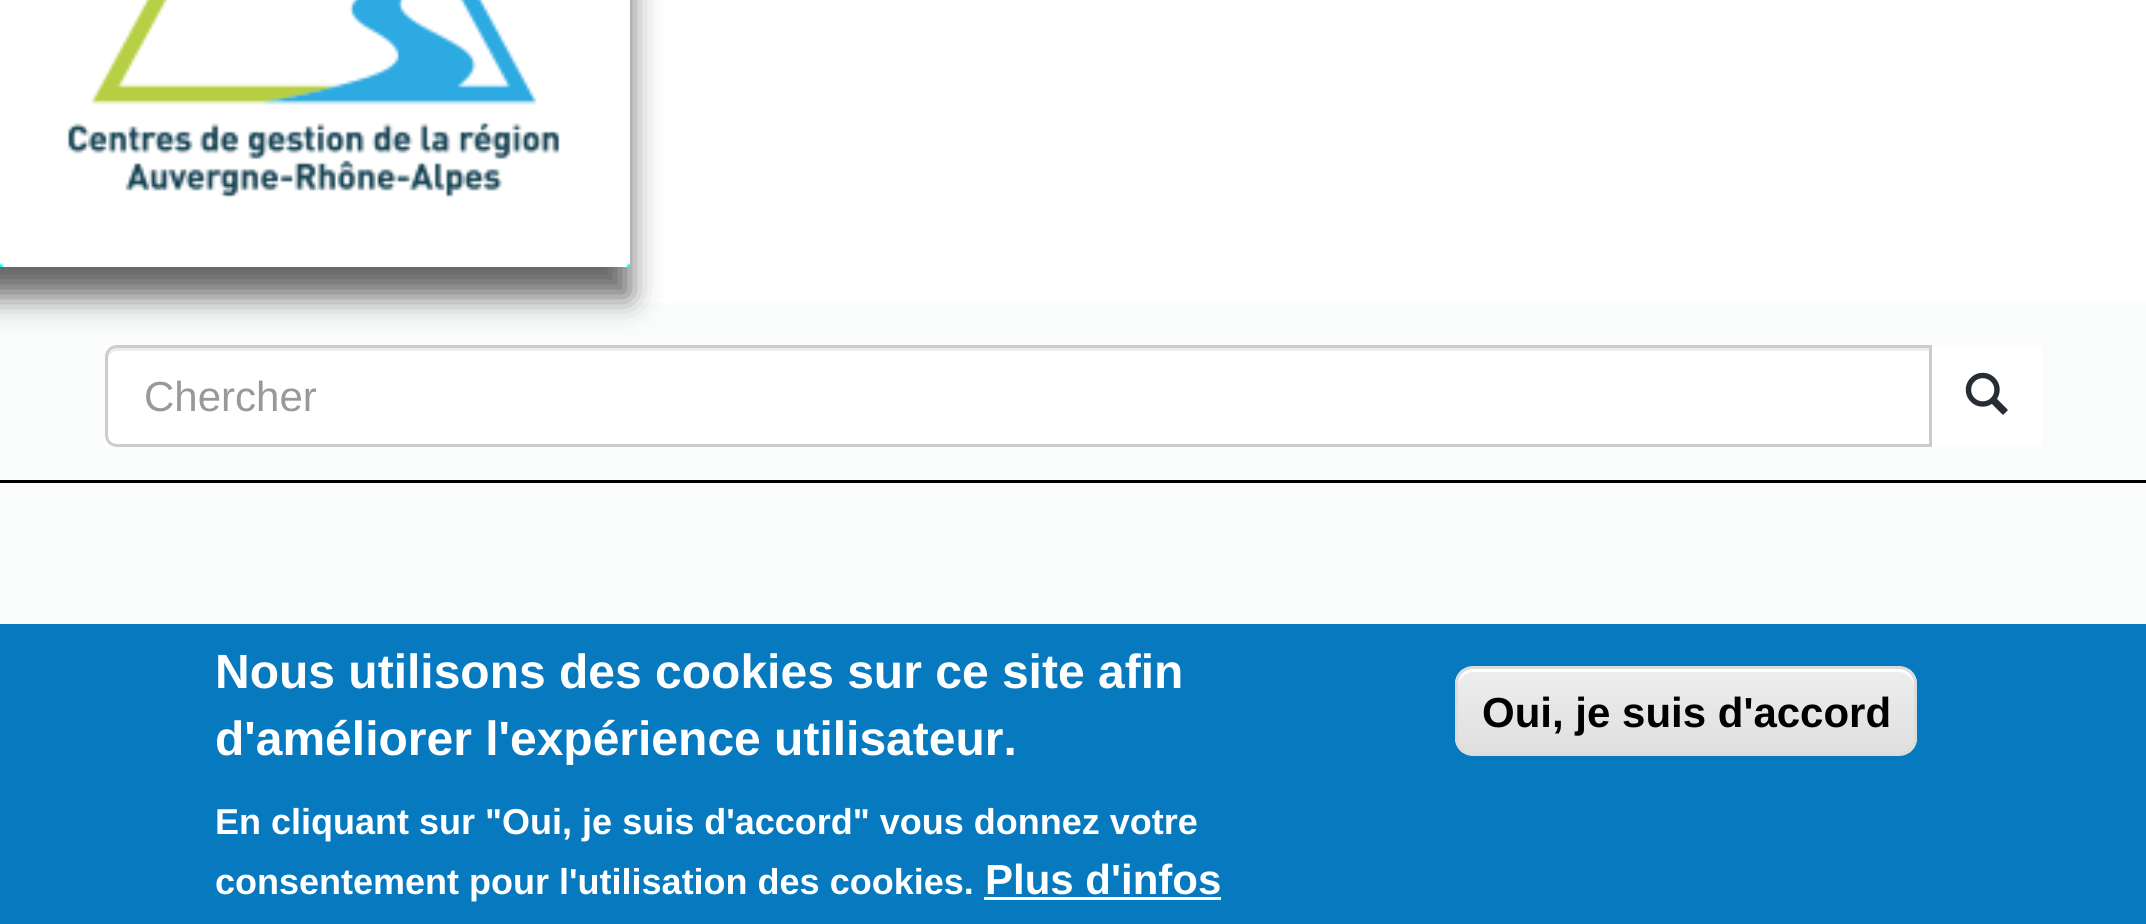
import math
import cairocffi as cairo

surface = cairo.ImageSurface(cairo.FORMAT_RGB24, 2146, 924)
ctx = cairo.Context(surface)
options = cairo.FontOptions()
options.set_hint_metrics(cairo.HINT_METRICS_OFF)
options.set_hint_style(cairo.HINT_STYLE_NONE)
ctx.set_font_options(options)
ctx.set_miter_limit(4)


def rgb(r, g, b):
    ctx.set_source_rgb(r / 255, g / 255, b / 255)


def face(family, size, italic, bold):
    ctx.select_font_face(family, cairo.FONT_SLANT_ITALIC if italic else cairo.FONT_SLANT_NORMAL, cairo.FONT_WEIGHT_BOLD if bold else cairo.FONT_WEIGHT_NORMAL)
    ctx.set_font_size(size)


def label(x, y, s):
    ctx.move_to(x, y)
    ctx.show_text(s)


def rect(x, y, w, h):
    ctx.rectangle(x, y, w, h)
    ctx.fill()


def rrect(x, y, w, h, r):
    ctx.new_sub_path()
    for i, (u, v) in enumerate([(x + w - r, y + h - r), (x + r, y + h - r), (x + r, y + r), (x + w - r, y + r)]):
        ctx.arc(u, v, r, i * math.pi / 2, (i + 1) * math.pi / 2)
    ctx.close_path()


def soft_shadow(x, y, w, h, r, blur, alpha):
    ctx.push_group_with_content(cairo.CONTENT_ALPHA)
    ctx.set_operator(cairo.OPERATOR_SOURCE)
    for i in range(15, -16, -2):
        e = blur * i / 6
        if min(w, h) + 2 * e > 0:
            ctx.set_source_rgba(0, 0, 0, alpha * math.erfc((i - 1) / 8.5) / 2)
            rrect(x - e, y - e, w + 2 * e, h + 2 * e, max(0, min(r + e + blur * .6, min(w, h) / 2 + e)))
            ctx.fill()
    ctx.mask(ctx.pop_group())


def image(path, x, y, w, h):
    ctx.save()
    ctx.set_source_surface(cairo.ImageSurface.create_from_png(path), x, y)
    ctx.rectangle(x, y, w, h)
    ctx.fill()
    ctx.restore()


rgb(255, 255, 255)
ctx.paint()
rgb(250, 251, 251)
rect(0, 303, 2146, 321)
ctx.save()
ctx.set_fill_rule(cairo.FILL_RULE_EVEN_ODD)
ctx.new_path()
ctx.move_to(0, 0)
ctx.line_to(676, 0)
ctx.line_to(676, 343)
ctx.line_to(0, 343)
ctx.close_path()
ctx.move_to(-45, -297)
ctx.line_to(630, -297)
ctx.line_to(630, 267)
ctx.line_to(-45, 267)
ctx.close_path()
ctx.clip()
rgb(102, 102, 102)
soft_shadow(-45, -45, 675, 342, 0, 15, 1)
ctx.restore()
image('image0.png', 0, 0, 630, 267)
rgb(255, 255, 255)
rect(105, 345, 1938, 102)
rgb(236, 236, 236)
ctx.new_path()
ctx.move_to(117, 351)
ctx.line_to(1929, 351)
ctx.line_to(1929, 348)
ctx.line_to(117, 348)
ctx.curve_to(112, 348, 108, 352, 108, 357)
ctx.line_to(108, 360)
ctx.curve_to(108, 355, 112, 351, 117, 351)
ctx.close_path()
ctx.fill()
ctx.new_path()
ctx.move_to(117, 346.5)
ctx.line_to(1930.5, 346.5)
ctx.line_to(1930.5, 445.5)
ctx.line_to(117, 445.5)
ctx.curve_to(111, 445.5, 106.5, 441, 106.5, 435)
ctx.line_to(106.5, 357)
ctx.curve_to(106.5, 351, 111, 346.5, 117, 346.5)
ctx.close_path()
rgb(204, 204, 204)
ctx.set_line_width(3)
ctx.stroke()
face('Liberation Sans', 42, 0, 0)
rgb(153, 153, 153)
label(144, 411, 'Chercher')
image('image1.png', 1965, 372, 43, 43)
rgb(0, 0, 0)
rect(0, 480, 2146, 3)
rgb(7, 121, 191)
rect(0, 624, 2146, 300)
face('Liberation Sans', 48, 0, 1)
rgb(255, 255, 255)
label(215, 688, 'Nous utilisons des cookies sur ce site afin')
label(215, 755, 'd\'améliorer l\'expérience utilisateur.')
face('Liberation Sans', 36, 0, 1)
label(215, 834, 'En cliquant sur "Oui, je suis d\'accord" vous donnez votre')
label(215, 894, 'consentement pour l\'utilisation des cookies.')
face('Liberation Sans', 42, 0, 1)
label(985, 894, 'Plus d\'infos')
rect(984, 897, 237, 3)
ctx.save()
rrect(1455, 666, 462, 90, 18)
ctx.clip()
gradient = cairo.LinearGradient(1686, 669, 1686, 753)
gradient.add_color_stop_rgba(0.05, 0.929, 0.929, 0.929, 1)
gradient.add_color_stop_rgba(1, 0.875, 0.875, 0.875, 1)
ctx.set_source(gradient)
rect(1455, 669, 462, 84)
ctx.restore()
ctx.new_path()
ctx.move_to(1473, 672)
ctx.line_to(1899, 672)
ctx.curve_to(1907, 672, 1914, 679, 1914, 687)
ctx.line_to(1914, 684)
ctx.curve_to(1914, 676, 1907, 669, 1899, 669)
ctx.line_to(1473, 669)
ctx.curve_to(1465, 669, 1458, 676, 1458, 684)
ctx.line_to(1458, 687)
ctx.curve_to(1458, 679, 1465, 672, 1473, 672)
ctx.close_path()
ctx.fill()
rrect(1456.5, 667.5, 459, 87, 16.5)
rgb(220, 220, 220)
ctx.stroke()
rgb(0, 0, 0)
label(1482, 727, 'Oui, je suis d\'accord')
surface.write_to_png('render.png')
